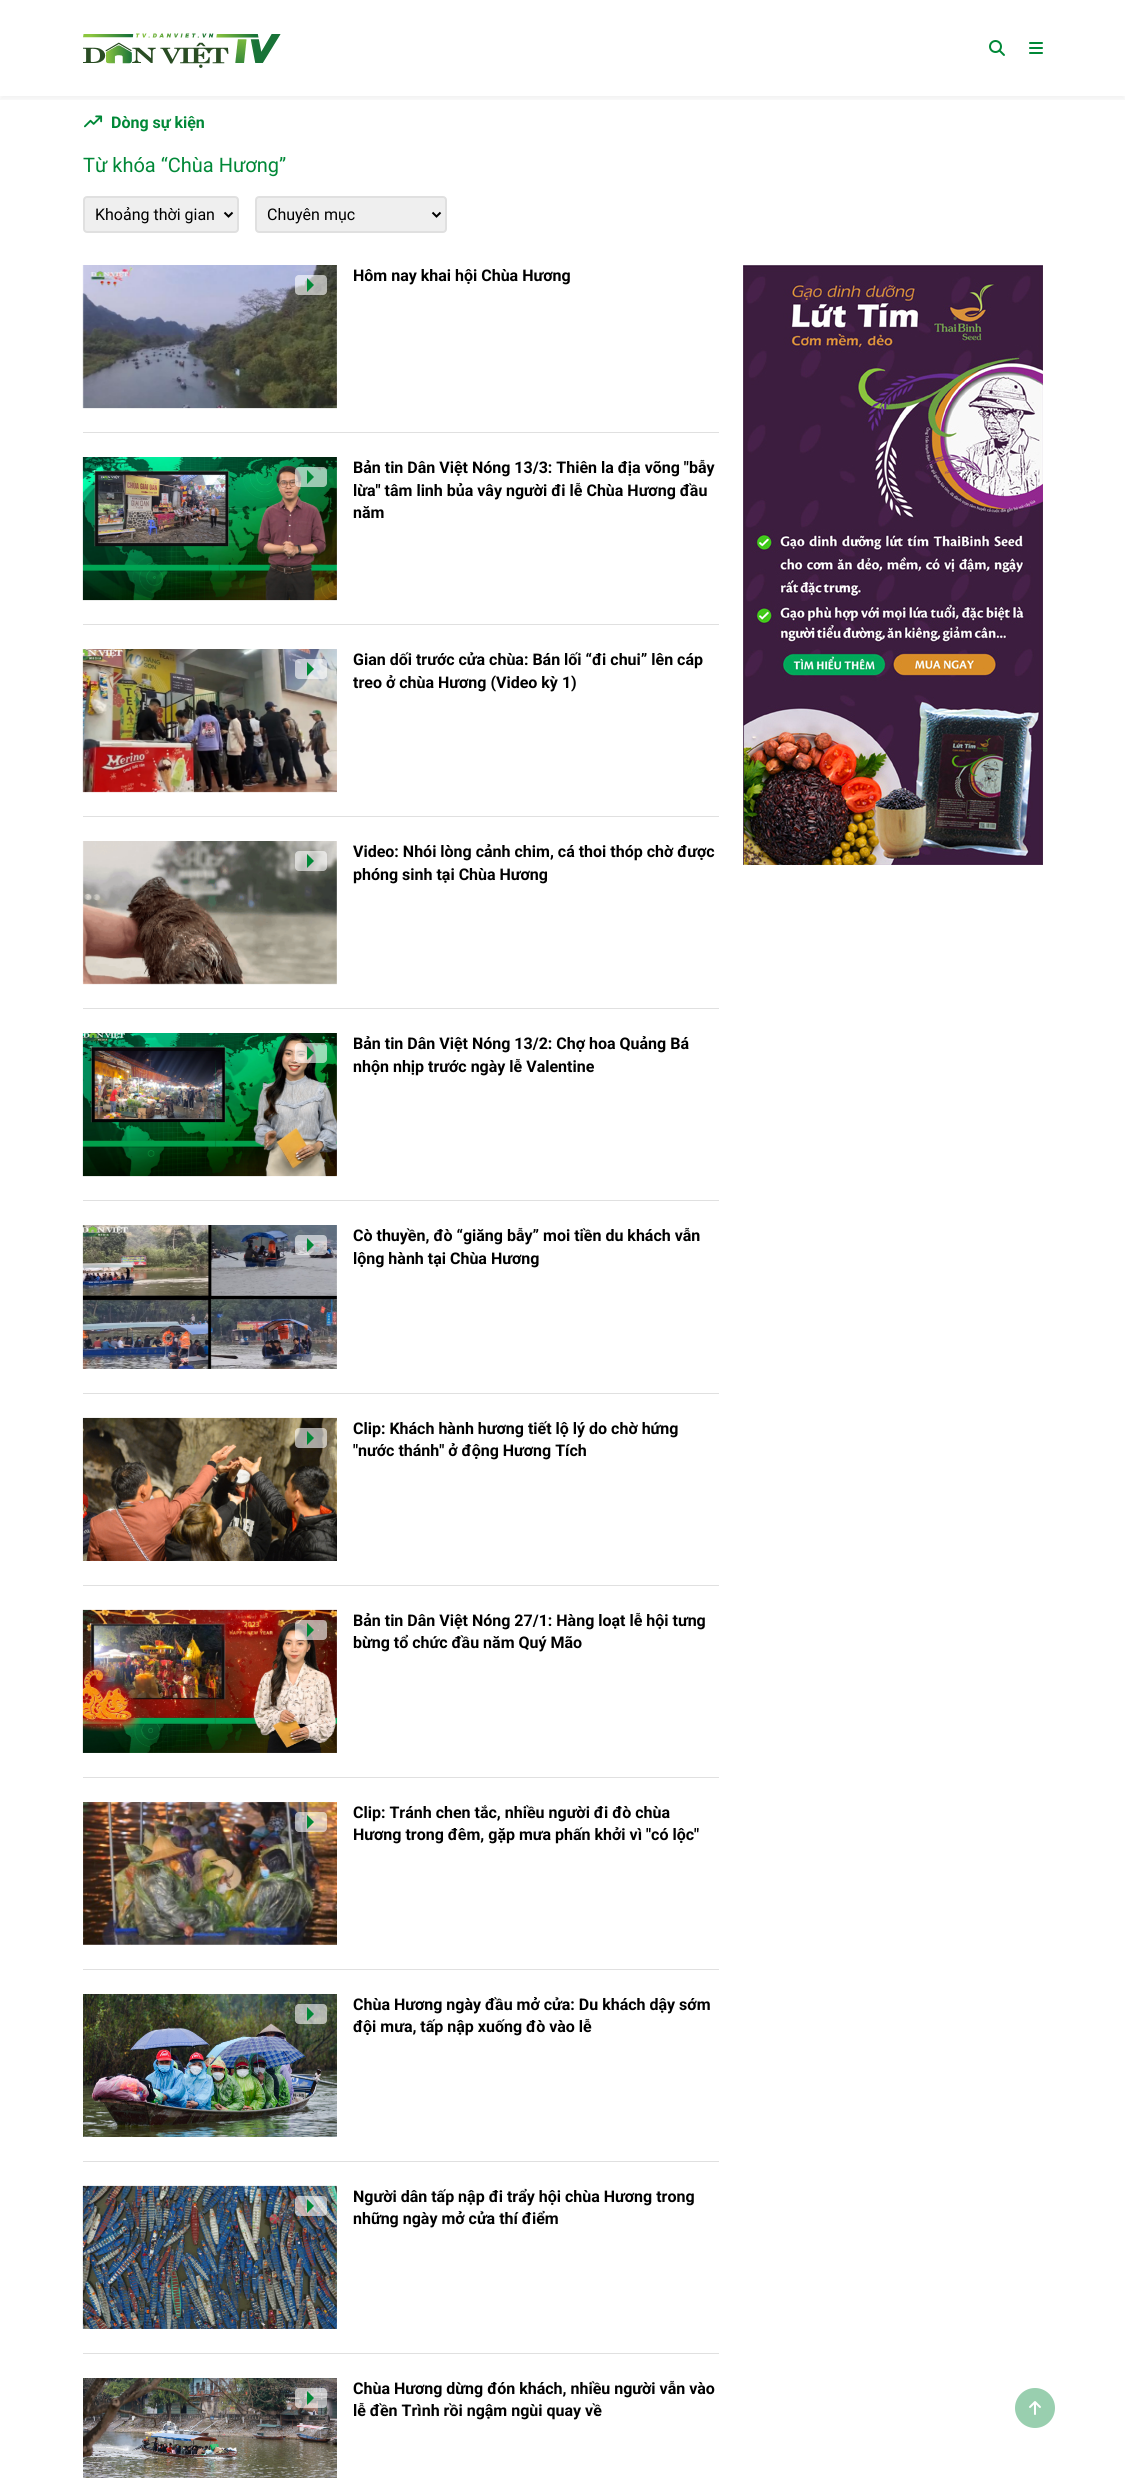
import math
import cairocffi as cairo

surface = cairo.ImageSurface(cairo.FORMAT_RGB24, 1125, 2478)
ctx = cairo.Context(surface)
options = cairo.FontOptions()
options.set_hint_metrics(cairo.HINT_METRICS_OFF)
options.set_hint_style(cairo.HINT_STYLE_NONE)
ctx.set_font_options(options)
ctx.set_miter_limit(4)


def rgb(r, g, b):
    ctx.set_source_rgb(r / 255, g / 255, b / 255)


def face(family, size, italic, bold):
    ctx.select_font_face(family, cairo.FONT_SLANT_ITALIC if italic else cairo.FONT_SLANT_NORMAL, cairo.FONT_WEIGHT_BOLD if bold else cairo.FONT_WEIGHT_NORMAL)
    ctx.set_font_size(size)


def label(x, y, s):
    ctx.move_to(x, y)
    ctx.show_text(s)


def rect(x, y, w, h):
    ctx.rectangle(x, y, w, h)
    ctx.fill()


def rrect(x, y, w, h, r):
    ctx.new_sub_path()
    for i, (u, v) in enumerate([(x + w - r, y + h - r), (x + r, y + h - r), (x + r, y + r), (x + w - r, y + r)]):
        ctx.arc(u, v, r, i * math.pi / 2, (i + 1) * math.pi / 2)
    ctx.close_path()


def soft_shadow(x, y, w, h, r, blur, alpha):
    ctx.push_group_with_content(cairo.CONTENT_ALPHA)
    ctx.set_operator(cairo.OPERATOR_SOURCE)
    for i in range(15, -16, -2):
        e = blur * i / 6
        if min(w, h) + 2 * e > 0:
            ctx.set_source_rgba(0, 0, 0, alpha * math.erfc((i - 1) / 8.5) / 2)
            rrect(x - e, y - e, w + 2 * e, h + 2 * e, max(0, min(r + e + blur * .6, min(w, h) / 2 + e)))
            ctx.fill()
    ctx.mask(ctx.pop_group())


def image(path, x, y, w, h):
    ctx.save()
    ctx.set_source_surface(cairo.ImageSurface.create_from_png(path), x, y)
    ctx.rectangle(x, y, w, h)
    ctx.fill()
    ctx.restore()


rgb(255, 255, 255)
ctx.paint()
ctx.save()
ctx.rectangle(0, 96, 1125, 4)
ctx.clip()
rgb(0, 0, 0)
soft_shadow(0, 4, 1125, 96, 0, 2, 0.05)
ctx.restore()
image('image0.png', 83, 33, 198, 35)
image('image1.png', 989, 40, 16, 16)
image('image2.png', 1029, 42, 14, 12)
image('image3.png', 84, 115, 19, 13)
face('Roboto', 16, 0, 1)
rgb(0, 136, 55)
label(111, 128, 'Dòng sự kiện')
face('Roboto', 20, 0, 0)
label(83, 172, 'Từ khóa “Chùa Hương”')
rgb(239, 239, 239)
rrect(84, 197, 154, 35, 3)
ctx.fill_preserve()
rgb(224, 224, 224)
ctx.stroke()
ctx.new_path()
ctx.move_to(224.5, 212.5)
ctx.line_to(228.5, 216.5)
ctx.line_to(232.5, 212.5)
rgb(0, 0, 0)
ctx.stroke()
face('Roboto', 16, 0, 0)
label(95, 220, 'Khoảng thời gian')
rgb(239, 239, 239)
rrect(256, 197, 190, 35, 3)
ctx.fill_preserve()
rgb(224, 224, 224)
ctx.stroke()
ctx.new_path()
ctx.move_to(432.5, 212.5)
ctx.line_to(436.5, 216.5)
ctx.line_to(440.5, 212.5)
rgb(0, 0, 0)
ctx.stroke()
label(267, 220, 'Chuyên mục')
rgb(224, 224, 224)
rect(83, 432, 636, 1)
image('image4.png', 82, 265, 255, 144)
ctx.set_source_rgba(1, 1, 1, 0.6)
rrect(295, 275, 32, 20, 4)
ctx.fill()
rgb(0, 136, 55)
ctx.new_path()
ctx.move_to(307, 292)
ctx.line_to(307, 278)
ctx.line_to(314, 285)
ctx.close_path()
ctx.fill()
face('Roboto', 16, 0, 1)
rgb(0, 0, 0)
label(353, 281, 'Hôm nay khai hội Chùa Hương')
rgb(224, 224, 224)
rect(83, 624, 636, 1)
image('image5.png', 82, 457, 255, 144)
ctx.set_source_rgba(1, 1, 1, 0.6)
rrect(295, 467, 32, 20, 4)
ctx.fill()
rgb(0, 136, 55)
ctx.new_path()
ctx.move_to(307, 484)
ctx.line_to(307, 470)
ctx.line_to(314, 477)
ctx.close_path()
ctx.fill()
rgb(0, 0, 0)
label(353, 473, 'Bản tin Dân Việt Nóng 13/3: Thiên la địa võng "bẫy')
label(353, 496, 'lừa" tâm linh bủa vây người đi lễ Chùa Hương đầu')
label(353, 518, 'năm')
rgb(224, 224, 224)
rect(83, 816, 636, 1)
image('image6.png', 82, 649, 255, 144)
ctx.set_source_rgba(1, 1, 1, 0.6)
rrect(295, 659, 32, 20, 4)
ctx.fill()
rgb(0, 136, 55)
ctx.new_path()
ctx.move_to(307, 676)
ctx.line_to(307, 662)
ctx.line_to(314, 669)
ctx.close_path()
ctx.fill()
rgb(0, 0, 0)
label(353, 665, 'Gian dối trước cửa chùa: Bán lối “đi chui” lên cáp')
label(353, 688, 'treo ở chùa Hương (Video kỳ 1)')
rgb(224, 224, 224)
rect(83, 1008, 636, 1)
image('image7.png', 82, 841, 255, 144)
ctx.set_source_rgba(1, 1, 1, 0.6)
rrect(295, 851, 32, 20, 4)
ctx.fill()
rgb(0, 136, 55)
ctx.new_path()
ctx.move_to(307, 868)
ctx.line_to(307, 854)
ctx.line_to(314, 861)
ctx.close_path()
ctx.fill()
rgb(0, 0, 0)
label(353, 857, 'Video: Nhói lòng cảnh chim, cá thoi thóp chờ được')
label(353, 880, 'phóng sinh tại Chùa Hương')
rgb(224, 224, 224)
rect(83, 1200, 636, 1)
image('image8.png', 82, 1033, 255, 144)
ctx.set_source_rgba(1, 1, 1, 0.6)
rrect(295, 1043, 32, 20, 4)
ctx.fill()
rgb(0, 136, 55)
ctx.new_path()
ctx.move_to(307, 1060)
ctx.line_to(307, 1046)
ctx.line_to(314, 1053)
ctx.close_path()
ctx.fill()
rgb(0, 0, 0)
label(353, 1049, 'Bản tin Dân Việt Nóng 13/2: Chợ hoa Quảng Bá')
label(353, 1072, 'nhộn nhịp trước ngày lễ Valentine')
rgb(224, 224, 224)
rect(83, 1393, 636, 1)
image('image9.png', 82, 1225, 255, 144)
ctx.set_source_rgba(1, 1, 1, 0.6)
rrect(295, 1235, 32, 20, 4)
ctx.fill()
rgb(0, 136, 55)
ctx.new_path()
ctx.move_to(307, 1252)
ctx.line_to(307, 1238)
ctx.line_to(314, 1245)
ctx.close_path()
ctx.fill()
rgb(0, 0, 0)
label(353, 1241, 'Cò thuyền, đò “giăng bẫy” moi tiền du khách vẫn')
label(353, 1264, 'lộng hành tại Chùa Hương')
rgb(224, 224, 224)
rect(83, 1585, 636, 1)
image('image10.png', 82, 1417, 255, 144)
ctx.set_source_rgba(1, 1, 1, 0.6)
rrect(295, 1428, 32, 20, 4)
ctx.fill()
rgb(0, 136, 55)
ctx.new_path()
ctx.move_to(307, 1445)
ctx.line_to(307, 1431)
ctx.line_to(314, 1438)
ctx.close_path()
ctx.fill()
rgb(0, 0, 0)
label(353, 1434, 'Clip: Khách hành hương tiết lộ lý do chờ hứng')
label(353, 1456, '"nước thánh" ở động Hương Tích')
rgb(224, 224, 224)
rect(83, 1777, 636, 1)
image('image11.png', 82, 1609, 255, 144)
ctx.set_source_rgba(1, 1, 1, 0.6)
rrect(295, 1620, 32, 20, 4)
ctx.fill()
rgb(0, 136, 55)
ctx.new_path()
ctx.move_to(307, 1637)
ctx.line_to(307, 1623)
ctx.line_to(314, 1630)
ctx.close_path()
ctx.fill()
rgb(0, 0, 0)
label(353, 1626, 'Bản tin Dân Việt Nóng 27/1: Hàng loạt lễ hội tưng')
label(353, 1648, 'bừng tổ chức đầu năm Quý Mão')
rgb(224, 224, 224)
rect(83, 1969, 636, 1)
image('image12.png', 83, 1802, 254, 143)
ctx.set_source_rgba(1, 1, 1, 0.6)
rrect(295, 1812, 32, 20, 4)
ctx.fill()
rgb(0, 136, 55)
ctx.new_path()
ctx.move_to(307, 1829)
ctx.line_to(307, 1815)
ctx.line_to(314, 1822)
ctx.close_path()
ctx.fill()
rgb(0, 0, 0)
label(353, 1818, 'Clip: Tránh chen tắc, nhiều người đi đò chùa')
label(353, 1840, 'Hương trong đêm, gặp mưa phấn khởi vì "có lộc"')
rgb(224, 224, 224)
rect(83, 2161, 636, 1)
image('image13.png', 83, 1994, 254, 143)
ctx.set_source_rgba(1, 1, 1, 0.6)
rrect(295, 2004, 32, 20, 4)
ctx.fill()
rgb(0, 136, 55)
ctx.new_path()
ctx.move_to(307, 2021)
ctx.line_to(307, 2007)
ctx.line_to(314, 2014)
ctx.close_path()
ctx.fill()
rgb(0, 0, 0)
label(353, 2010, 'Chùa Hương ngày đầu mở cửa: Du khách dậy sớm')
label(353, 2032, 'đội mưa, tấp nập xuống đò vào lễ')
rgb(224, 224, 224)
rect(83, 2353, 636, 1)
image('image14.png', 82, 2185, 255, 144)
ctx.set_source_rgba(1, 1, 1, 0.6)
rrect(295, 2196, 32, 20, 4)
ctx.fill()
rgb(0, 136, 55)
ctx.new_path()
ctx.move_to(307, 2213)
ctx.line_to(307, 2199)
ctx.line_to(314, 2206)
ctx.close_path()
ctx.fill()
rgb(0, 0, 0)
label(353, 2202, 'Người dân tấp nập đi trẩy hội chùa Hương trong')
label(353, 2224, 'những ngày mở cửa thí điểm')
image('image15.png', 83, 2378, 254, 100)
ctx.set_source_rgba(1, 1, 1, 0.6)
rrect(295, 2388, 32, 20, 4)
ctx.fill()
rgb(0, 136, 55)
ctx.new_path()
ctx.move_to(307, 2405)
ctx.line_to(307, 2391)
ctx.line_to(314, 2398)
ctx.close_path()
ctx.fill()
rgb(0, 0, 0)
label(353, 2394, 'Chùa Hương dừng đón khách, nhiều người vẫn vào')
label(353, 2416, 'lễ đền Trình rồi ngậm ngùi quay về')
image('image16.png', 743, 265, 300, 600)
rgb(153, 207, 175)
ctx.arc(1035, 2408, 20, 0, 2 * math.pi)
ctx.fill()
image('image17.png', 1029, 2401, 12, 14)
surface.write_to_png('render.png')
